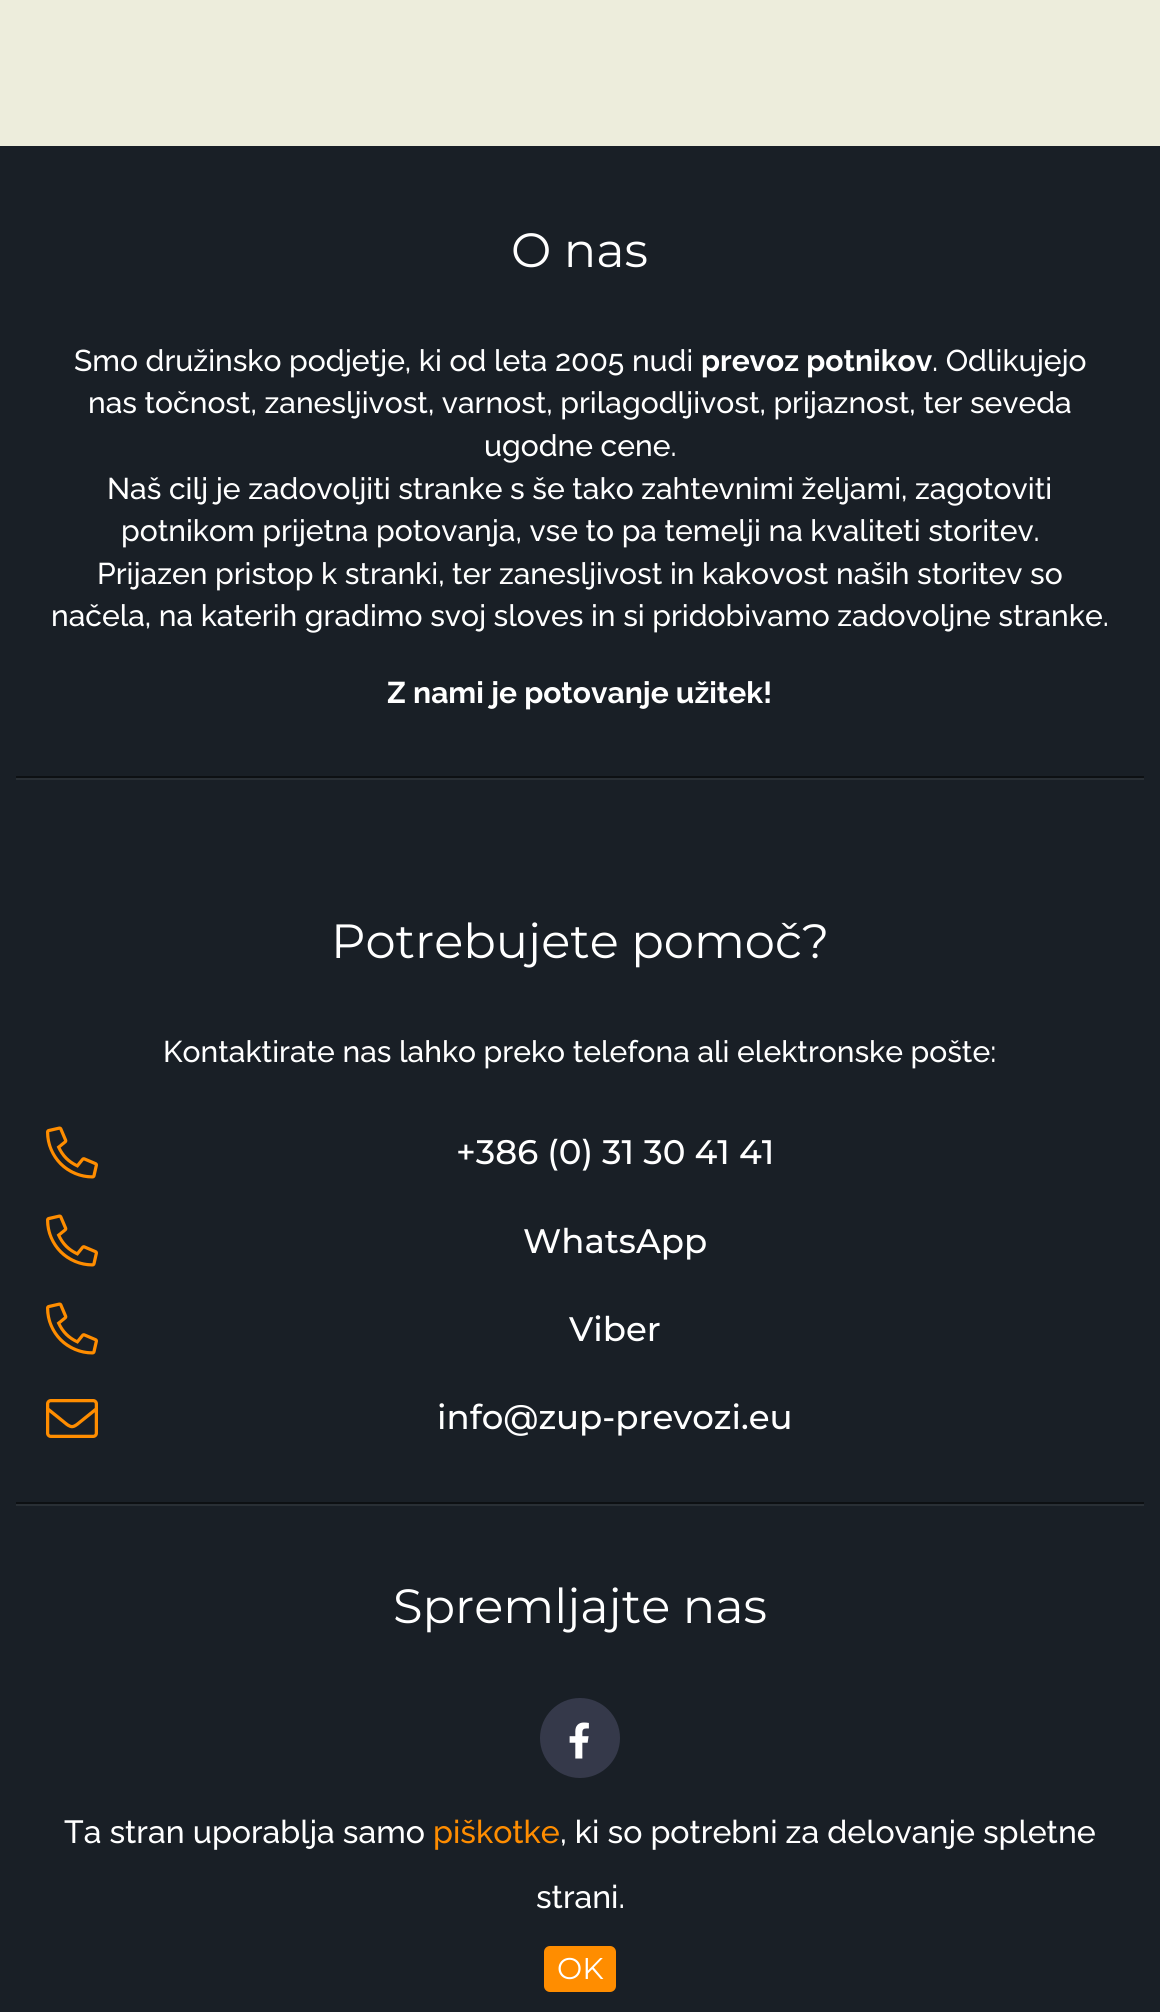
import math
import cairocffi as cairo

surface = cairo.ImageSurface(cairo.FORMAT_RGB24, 1160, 2012)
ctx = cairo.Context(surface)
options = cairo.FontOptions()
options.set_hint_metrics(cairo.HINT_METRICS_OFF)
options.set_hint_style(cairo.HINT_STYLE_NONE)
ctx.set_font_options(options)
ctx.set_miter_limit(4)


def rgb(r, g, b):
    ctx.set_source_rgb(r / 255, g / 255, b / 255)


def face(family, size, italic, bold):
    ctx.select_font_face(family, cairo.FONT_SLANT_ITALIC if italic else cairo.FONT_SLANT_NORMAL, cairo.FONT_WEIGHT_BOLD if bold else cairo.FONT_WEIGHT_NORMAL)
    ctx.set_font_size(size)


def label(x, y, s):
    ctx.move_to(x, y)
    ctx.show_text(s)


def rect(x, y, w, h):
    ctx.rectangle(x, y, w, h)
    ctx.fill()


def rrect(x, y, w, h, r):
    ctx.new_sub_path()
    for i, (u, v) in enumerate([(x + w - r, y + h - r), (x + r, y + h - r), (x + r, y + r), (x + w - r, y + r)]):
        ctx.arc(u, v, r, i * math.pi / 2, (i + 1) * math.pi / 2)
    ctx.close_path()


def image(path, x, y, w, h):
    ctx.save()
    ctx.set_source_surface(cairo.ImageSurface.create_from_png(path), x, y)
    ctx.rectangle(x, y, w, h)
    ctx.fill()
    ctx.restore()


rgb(237, 237, 220)
ctx.paint()
rgb(25, 31, 38)
rect(0, 146, 1160, 1866)
rgb(41, 47, 53)
rect(16, 778, 1128, 2)
rgb(13, 16, 19)
rect(16, 776, 1128, 2)
face('Montserrat', 48, 0, 0)
rgb(255, 255, 255)
label(511, 267, 'O nas')
face('Raleway Medium', 30, 0, 0)
label(74, 371, 'Smo družinsko podjetje, ki od leta 2005 nudi')
face('Raleway', 30, 0, 1)
label(701, 371, 'prevoz potnikov')
face('Raleway Medium', 30, 0, 0)
label(932, 371, '. Odlikujejo')
label(88, 413, 'nas točnost, zanesljivost, varnost, prilagodljivost, prijaznost, ter seveda')
label(484, 456, 'ugodne cene.')
label(107, 499, 'Naš cilj je zadovoljiti stranke s še tako zahtevnimi željami, zagotoviti')
label(121, 541, 'potnikom prijetna potovanja, vse to pa temelji na kvaliteti storitev.')
label(97, 584, 'Prijazen pristop k stranki, ter zanesljivost in kakovost naših storitev so')
label(51, 626, 'načela, na katerih gradimo svoj sloves in si pridobivamo zadovoljne stranke.')
face('Raleway', 30, 0, 1)
label(387, 703, 'Z nami je potovanje užitek!')
rgb(41, 47, 53)
rect(16, 1504, 1128, 2)
rgb(13, 16, 19)
rect(16, 1502, 1128, 2)
face('Montserrat', 48, 0, 0)
rgb(255, 255, 255)
label(331, 958, 'Potrebujete pomoč?')
face('Raleway Medium', 30, 0, 0)
label(163, 1062, 'Kontaktirate nas lahko preko telefona ali elektronske pošte:')
image('image0.png', 46, 1126, 52, 53)
face('Montserrat Medium', 34, 0, 0)
label(456, 1164, '+386 (0) 31 30 41 41')
image('image0.png', 46, 1214, 52, 53)
label(523, 1253, 'WhatsApp')
image('image0.png', 46, 1302, 52, 53)
label(569, 1341, 'Viber')
image('image1.png', 46, 1399, 52, 39)
label(437, 1429, 'info@zup-prevozi.eu')
face('Montserrat', 48, 0, 0)
label(393, 1623, 'Spremljajte nas')
rgb(53, 57, 74)
ctx.new_path()
ctx.arc(580, 1738, 40, 0, 2 * math.pi)
ctx.fill()
image('image2.png', 569, 1722, 20, 37)
face('Raleway Medium', 32, 0, 0)
rgb(255, 255, 255)
label(64, 1843, 'Ta stran uporablja samo')
rgb(255, 141, 0)
label(433, 1843, 'piškotke')
rgb(255, 255, 255)
label(560, 1843, ', ki so potrebni za delovanje spletne')
label(536, 1908, 'strani.')
rgb(255, 141, 0)
rrect(544, 1946, 72, 46, 6)
ctx.fill()
face('Montserrat', 30, 0, 0)
rgb(255, 255, 255)
label(557, 1979, 'OK')
surface.write_to_png('render.png')
